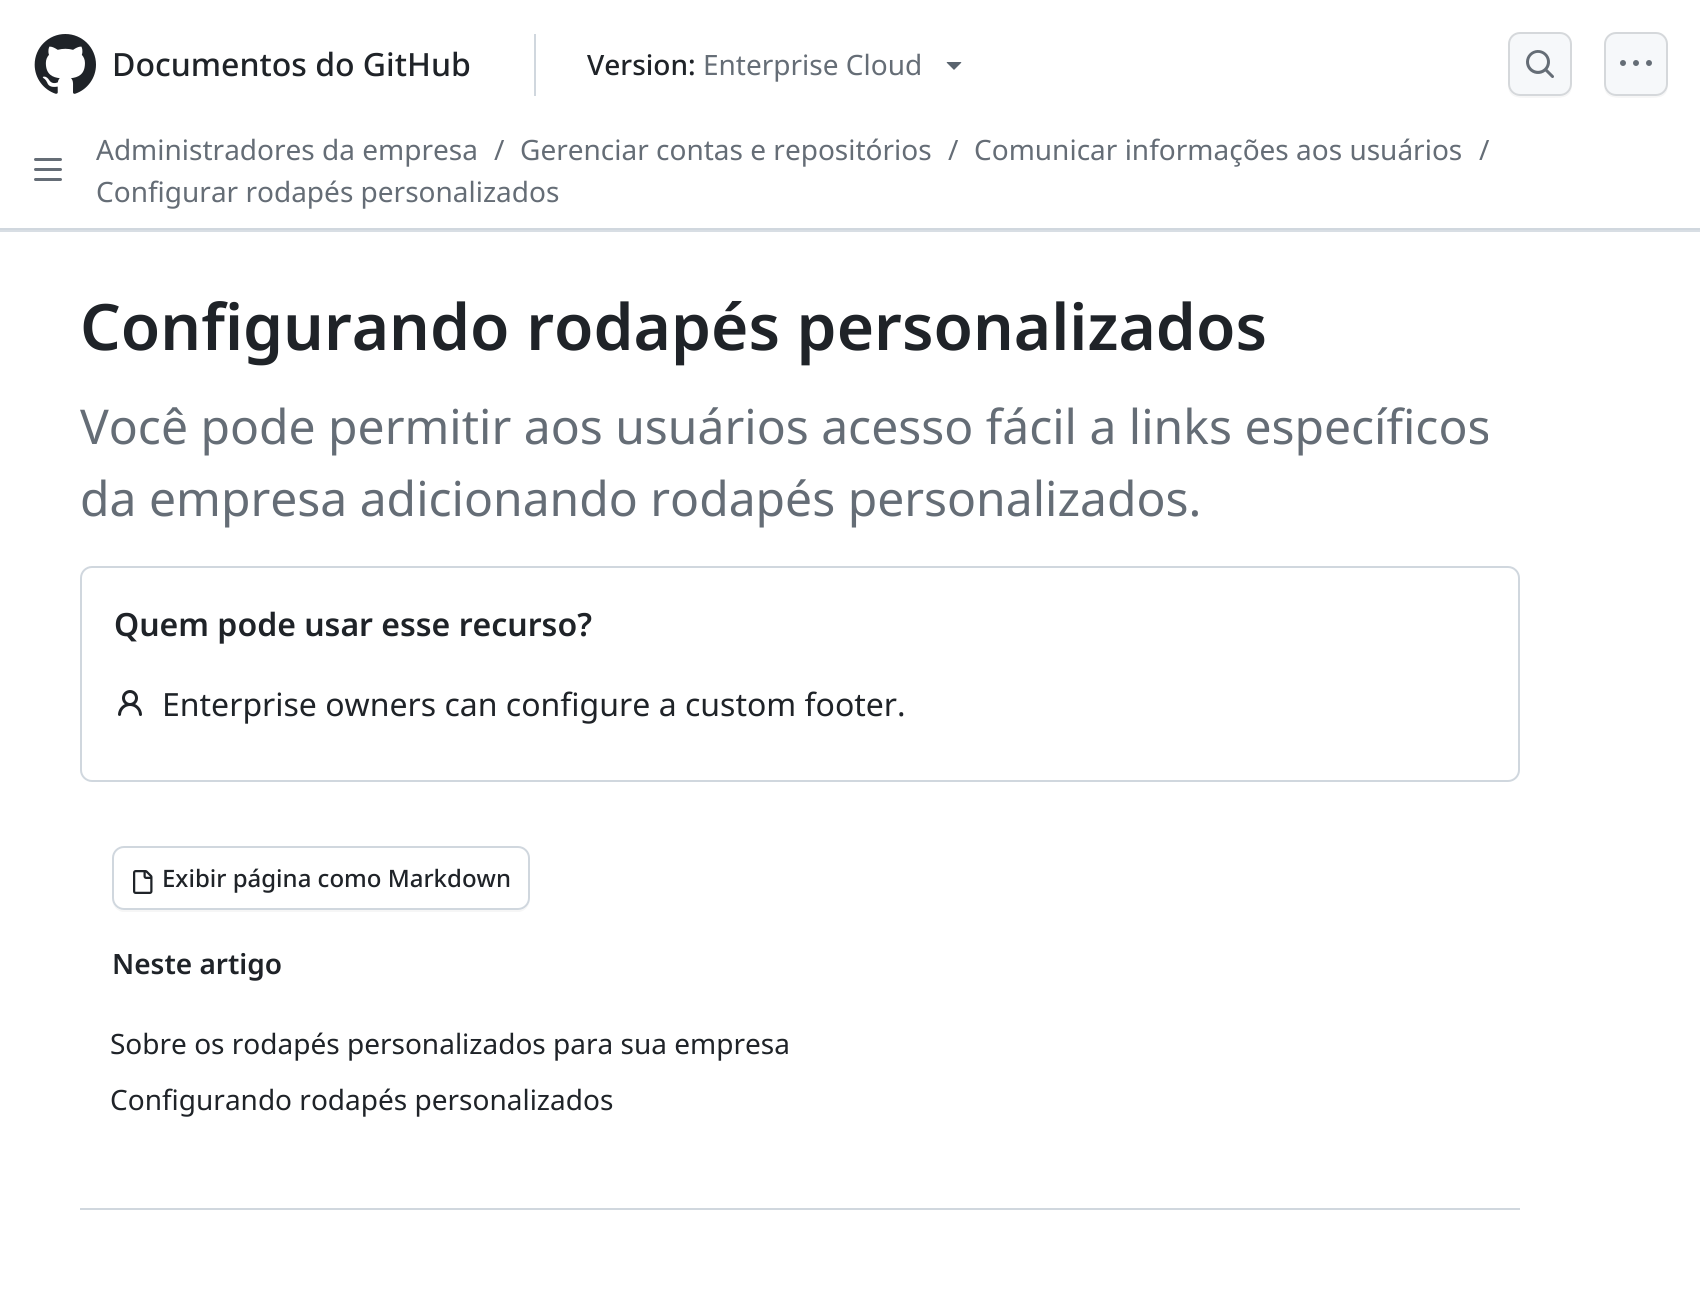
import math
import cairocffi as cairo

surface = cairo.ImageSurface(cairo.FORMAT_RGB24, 1700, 1305)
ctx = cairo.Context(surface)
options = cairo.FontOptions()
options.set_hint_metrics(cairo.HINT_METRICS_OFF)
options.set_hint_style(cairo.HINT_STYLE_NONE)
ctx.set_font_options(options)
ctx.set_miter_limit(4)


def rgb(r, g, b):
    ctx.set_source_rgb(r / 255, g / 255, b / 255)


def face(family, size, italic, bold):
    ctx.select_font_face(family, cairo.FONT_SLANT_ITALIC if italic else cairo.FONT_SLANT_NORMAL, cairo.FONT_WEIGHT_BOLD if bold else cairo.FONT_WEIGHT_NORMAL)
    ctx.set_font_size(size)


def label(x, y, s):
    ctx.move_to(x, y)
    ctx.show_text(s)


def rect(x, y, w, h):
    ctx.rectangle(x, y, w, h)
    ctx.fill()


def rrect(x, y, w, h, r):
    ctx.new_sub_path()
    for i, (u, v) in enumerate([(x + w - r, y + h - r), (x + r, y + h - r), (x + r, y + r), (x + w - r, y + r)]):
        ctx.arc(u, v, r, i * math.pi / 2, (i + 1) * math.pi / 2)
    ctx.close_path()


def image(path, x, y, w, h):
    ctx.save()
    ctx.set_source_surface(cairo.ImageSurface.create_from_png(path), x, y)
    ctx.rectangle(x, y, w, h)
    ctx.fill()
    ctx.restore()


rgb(255, 255, 255)
ctx.paint()
rgb(216, 222, 228)
rect(0, 230, 1700, 2)
rgb(208, 215, 222)
rect(0, 228, 1700, 2)
image('image0.png', 34, 34, 62, 60)
face('Noto Sans Medium', 32, 0, 0)
rgb(31, 35, 40)
label(112, 76, 'Documentos do GitHub')
rgb(208, 215, 222)
rect(534, 34, 2, 62)
face('Noto Sans Medium', 28, 0, 0)
rgb(31, 35, 40)
label(587, 75, 'Version:')
face('Noto Sans', 28, 0, 0)
rgb(101, 109, 118)
label(703, 75, 'Enterprise Cloud')
image('image1.png', 946, 62, 16, 8)
rgb(246, 246, 246)
ctx.new_path()
ctx.move_to(1508, 84)
ctx.curve_to(1508, 97, 1516, 98, 1527, 98)
ctx.line_to(1553, 98)
ctx.curve_to(1564, 98, 1572, 97, 1572, 84)
ctx.curve_to(1572, 91, 1567, 96, 1560, 96)
ctx.line_to(1520, 96)
ctx.curve_to(1513, 96, 1508, 91, 1508, 84)
ctx.close_path()
ctx.fill()
rgb(246, 248, 250)
rrect(1508, 32, 64, 64, 12)
ctx.fill()
rrect(1509, 33, 62, 62, 11)
ctx.set_source_rgba(0.122, 0.137, 0.157, 0.15)
ctx.stroke()
image('image2.png', 1526, 50, 28, 28)
rgb(246, 246, 246)
ctx.new_path()
ctx.move_to(1604, 84)
ctx.curve_to(1604, 97, 1612, 98, 1623, 98)
ctx.line_to(1649, 98)
ctx.curve_to(1660, 98, 1668, 97, 1668, 84)
ctx.curve_to(1668, 91, 1663, 96, 1656, 96)
ctx.line_to(1616, 96)
ctx.curve_to(1609, 96, 1604, 91, 1604, 84)
ctx.close_path()
ctx.fill()
rgb(246, 248, 250)
rrect(1604, 32, 64, 64, 12)
ctx.fill()
rrect(1605, 33, 62, 62, 11)
ctx.set_source_rgba(0.122, 0.137, 0.157, 0.15)
ctx.stroke()
image('image3.png', 1620, 60, 32, 6)
image('image4.png', 34, 158, 28, 23)
rgb(101, 109, 118)
label(96, 160, 'Administradores da empresa')
label(494, 160, '/')
label(520, 160, 'Gerenciar contas e repositórios')
label(948, 160, '/')
label(974, 160, 'Comunicar informações aos usuários')
label(1479, 160, '/')
label(96, 202, 'Configurar rodapés personalizados')
face('Noto Sans SemiBold', 64, 0, 0)
rgb(31, 35, 40)
label(80, 350, 'Configurando rodapés personalizados')
face('Noto Sans', 48, 0, 0)
rgb(101, 109, 118)
label(80, 444, 'Você pode permitir aos usuários acesso fácil a links específicos')
label(80, 516, 'da empresa adicionando rodapés personalizados.')
rrect(81, 567, 1438, 214, 11)
rgb(208, 215, 222)
ctx.stroke()
face('Noto Sans SemiBold', 32, 0, 0)
rgb(31, 35, 40)
label(114, 636, 'Quem pode usar esse recurso?')
image('image5.png', 118, 690, 24, 26)
face('Noto Sans', 32, 0, 0)
label(162, 716, 'Enterprise owners can configure a custom footer.')
rgb(208, 215, 222)
rect(80, 1208, 1440, 2)
rgb(246, 246, 246)
ctx.new_path()
ctx.move_to(112, 898)
ctx.curve_to(112, 904, 115, 910, 122, 912)
ctx.line_to(520, 912)
ctx.curve_to(527, 910, 530, 904, 530, 898)
ctx.curve_to(530, 905, 525, 910, 518, 910)
ctx.line_to(124, 910)
ctx.curve_to(117, 910, 112, 905, 112, 898)
ctx.close_path()
ctx.fill()
rrect(113, 847, 416, 62, 11)
rgb(208, 215, 222)
ctx.stroke()
image('image6.png', 133, 870, 20, 24)
face('Noto Sans Medium', 24, 0, 0)
rgb(31, 35, 40)
label(162, 887, 'Exibir página como Markdown')
face('Noto Sans SemiBold', 28, 0, 0)
label(112, 974, 'Neste artigo')
face('Noto Sans', 28, 0, 0)
label(110, 1054, 'Sobre os rodapés personalizados para sua empresa')
label(110, 1110, 'Configurando rodapés personalizados')
surface.write_to_png('render.png')
